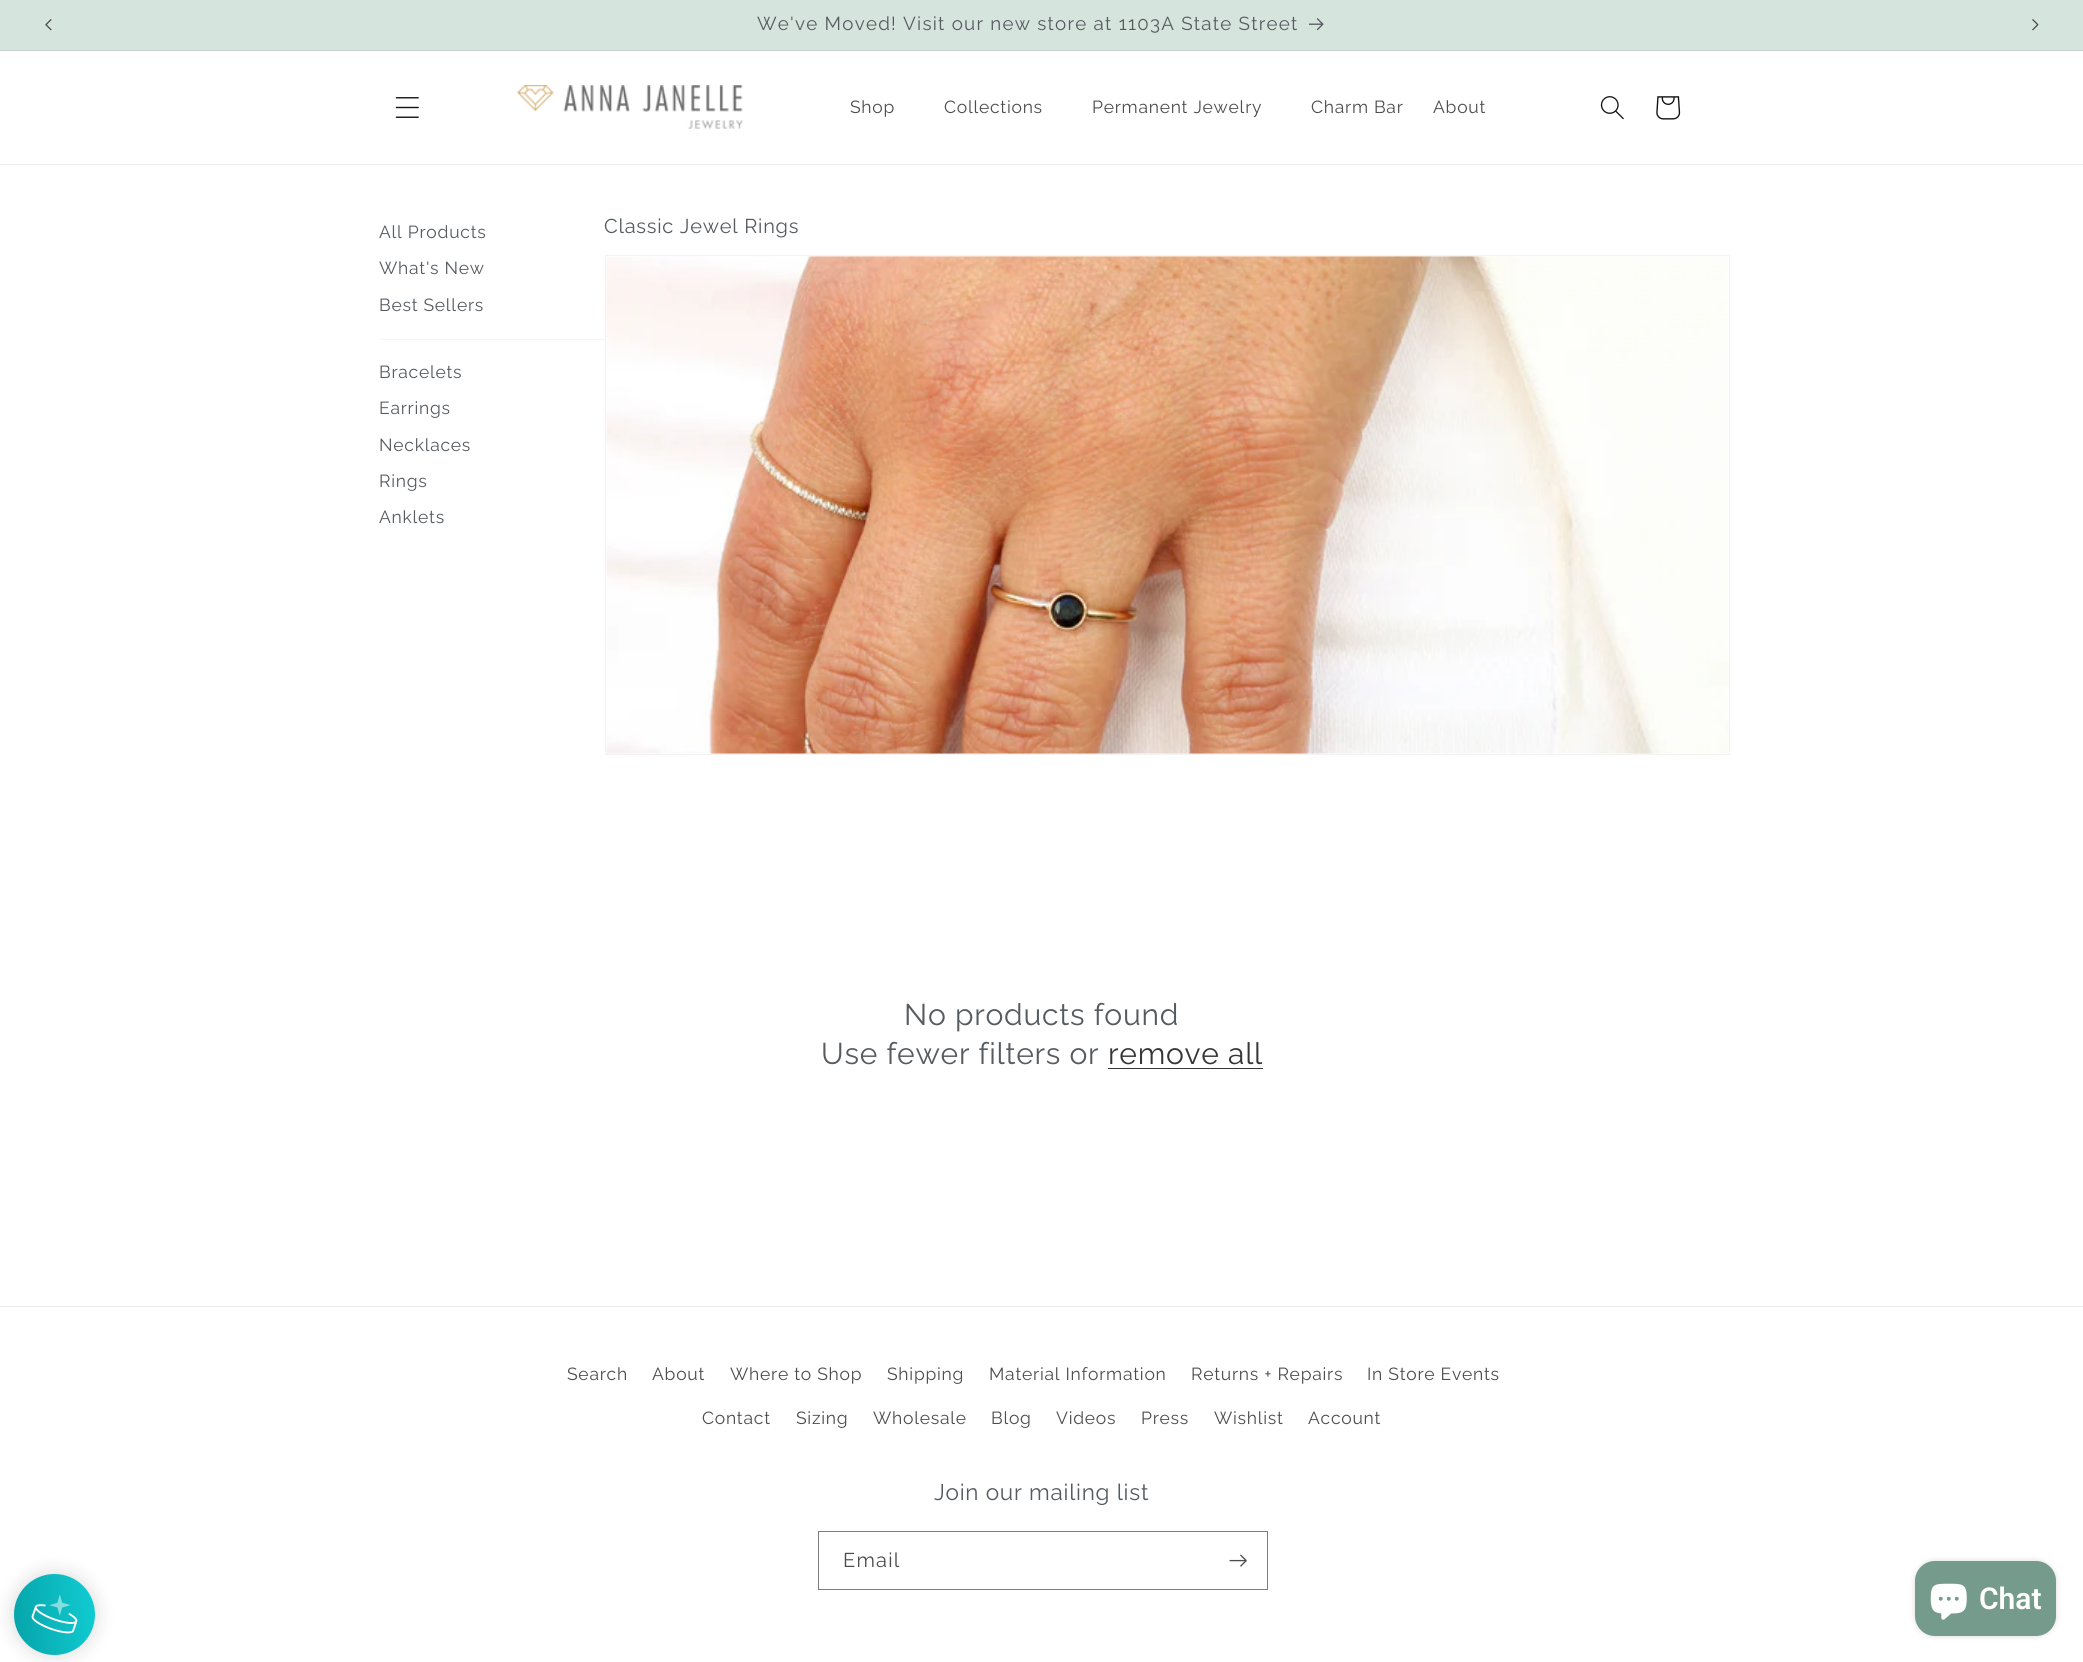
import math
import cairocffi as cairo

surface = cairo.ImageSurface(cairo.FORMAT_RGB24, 2083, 1662)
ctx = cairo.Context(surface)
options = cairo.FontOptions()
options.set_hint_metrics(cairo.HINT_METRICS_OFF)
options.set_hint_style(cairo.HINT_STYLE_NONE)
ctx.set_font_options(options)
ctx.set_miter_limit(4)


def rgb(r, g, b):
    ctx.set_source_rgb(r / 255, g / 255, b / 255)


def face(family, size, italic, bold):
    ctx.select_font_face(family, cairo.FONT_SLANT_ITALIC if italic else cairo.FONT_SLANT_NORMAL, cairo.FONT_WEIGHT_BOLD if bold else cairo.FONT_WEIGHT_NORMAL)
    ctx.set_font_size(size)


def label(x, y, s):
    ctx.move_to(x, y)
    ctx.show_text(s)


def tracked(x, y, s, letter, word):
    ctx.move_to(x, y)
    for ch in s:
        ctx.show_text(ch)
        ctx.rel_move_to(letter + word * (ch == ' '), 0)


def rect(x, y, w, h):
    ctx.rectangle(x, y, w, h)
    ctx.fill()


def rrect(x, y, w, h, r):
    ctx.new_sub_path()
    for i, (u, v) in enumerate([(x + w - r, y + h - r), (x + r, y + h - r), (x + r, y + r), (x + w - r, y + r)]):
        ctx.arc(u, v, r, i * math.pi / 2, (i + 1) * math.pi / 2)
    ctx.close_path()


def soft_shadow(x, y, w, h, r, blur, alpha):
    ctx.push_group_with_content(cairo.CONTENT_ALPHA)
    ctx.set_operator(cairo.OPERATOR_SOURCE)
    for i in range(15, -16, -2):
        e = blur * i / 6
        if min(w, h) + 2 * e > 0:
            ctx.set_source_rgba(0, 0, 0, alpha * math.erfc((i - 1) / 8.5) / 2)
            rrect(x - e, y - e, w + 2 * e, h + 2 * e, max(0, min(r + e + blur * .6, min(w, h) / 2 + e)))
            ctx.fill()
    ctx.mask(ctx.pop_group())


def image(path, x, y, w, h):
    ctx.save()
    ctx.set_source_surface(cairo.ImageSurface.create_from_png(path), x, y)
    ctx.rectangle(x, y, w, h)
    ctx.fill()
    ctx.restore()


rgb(255, 255, 255)
ctx.paint()
rgb(214, 228, 222)
rect(0, 0, 2083, 50)
rgb(198, 211, 206)
rect(0, 50, 2083, 1)
image('image0.png', 45, 19, 7, 12)
face('Raleway Thin', 18.75, 0, 0)
rgb(86, 91, 96)
tracked(757, 30, 'We\'ve Moved! Visit our new store at 1103A State Street', 1.25, 0)
image('image1.png', 1309, 18, 15, 13)
image('image2.png', 2032, 19, 7, 12)
rgb(236, 236, 236)
rect(0, 164, 2083, 1)
image('image3.png', 395, 97, 24, 21)
image('image4.png', 517, 85, 226, 44)
face('Raleway Thin', 17.5, 0, 0)
rgb(77, 77, 77)
tracked(850, 113, 'Shop', 0.75, 0)
tracked(944, 113, 'Collections', 0.75, 0)
tracked(1092, 113, 'Permanent Jewelry', 0.75, 0)
tracked(1311, 113, 'Charm Bar', 0.75, 0)
tracked(1433, 113, 'About', 0.75, 0)
image('image5.png', 1600, 96, 24, 24)
image('image6.png', 1656, 96, 25, 24)
rgb(86, 91, 96)
tracked(379, 238, 'All Products', 0.75, 0)
tracked(379, 274, 'What\'s New', 0.75, 0)
tracked(379, 311, 'Best Sellers', 0.75, 0)
rgb(243, 243, 243)
rect(380, 339, 225, 1)
rgb(86, 91, 96)
tracked(379, 378, 'Bracelets', 0.75, 0)
tracked(379, 414, 'Earrings', 0.75, 0)
tracked(379, 451, 'Necklaces', 0.75, 0)
tracked(379, 487, 'Rings', 0.75, 0)
tracked(379, 523, 'Anklets', 0.75, 0)
face('Raleway Thin', 20, 0, 0)
tracked(604, 233, 'Classic Jewel Rings', 0.75, 0)
ctx.rectangle(605.5, 255.5, 1124, 499)
rgb(243, 243, 243)
ctx.set_line_width(1)
ctx.stroke()
image('image7.png', 606, 256, 1123, 498)
face('Raleway Thin', 30, 0, 0)
rgb(86, 91, 96)
tracked(904, 1025, 'No products found', 0.75, 0)
tracked(821, 1064, 'Use fewer filters or', 0.75, 0)
rgb(54, 54, 54)
tracked(1108, 1064, 'remove all', 0.75, 0)
rect(1108, 1068, 155, 1)
rgb(236, 236, 236)
rect(0, 1306, 2083, 1)
face('Raleway Thin', 17.5, 0, 0)
rgb(77, 77, 77)
tracked(567, 1380, 'Search', 0.75, 0)
tracked(652, 1380, 'About', 0.75, 0)
tracked(730, 1380, 'Where to Shop', 0.75, 0)
tracked(887, 1380, 'Shipping', 0.75, 0)
tracked(989, 1380, 'Material Information', 0.75, 0)
tracked(1191, 1380, 'Returns + Repairs', 0.75, 0)
tracked(1367, 1380, 'In Store Events', 0.75, 0)
tracked(702, 1424, 'Contact', 0.75, 0)
tracked(796, 1424, 'Sizing', 0.75, 0)
tracked(873, 1424, 'Wholesale', 0.75, 0)
tracked(991, 1424, 'Blog', 0.75, 0)
tracked(1056, 1424, 'Videos', 0.75, 0)
tracked(1141, 1424, 'Press', 0.75, 0)
tracked(1214, 1424, 'Wishlist', 0.75, 0)
tracked(1308, 1424, 'Account', 0.75, 0)
face('Raleway Thin', 22.5, 0, 0)
rgb(86, 91, 96)
tracked(934, 1500, 'Join our mailing list', 0.75, 0)
ctx.rectangle(818.5, 1531.5, 449, 58)
rgb(125, 125, 125)
ctx.stroke()
face('Raleway Thin', 20, 0, 0)
rgb(77, 77, 77)
tracked(843, 1567, 'Email', 1.25, 0)
image('image8.png', 1229, 1554, 18, 13)
rgb(0, 0, 0)
soft_shadow(14, 1574, 81, 81, 40.5, 10, 0.15)
gradient = cairo.LinearGradient(99, 1609, 10, 1619)
gradient.add_color_stop_rgba(0.05, 0.063, 0.796, 0.82, 1)
gradient.add_color_stop_rgba(0.97, 0.024, 0.647, 0.667, 1)
ctx.set_source(gradient)
ctx.arc(54.5, 1614.5, 40.5, 0, 2 * math.pi)
ctx.fill()
image('image9.png', 31, 1594, 47, 40)
rgb(0, 0, 0)
soft_shadow(1915, 1561, 141, 75, 20, 3, 0.15)
rgb(117, 155, 140)
rrect(1915, 1561, 141, 75, 20)
ctx.fill()
image('image10.png', 1930, 1583, 37, 37)
face('Roboto SemiBold', 30, 0, 0)
rgb(255, 255, 255)
label(1979, 1609, 'Chat')
surface.write_to_png('render.png')
